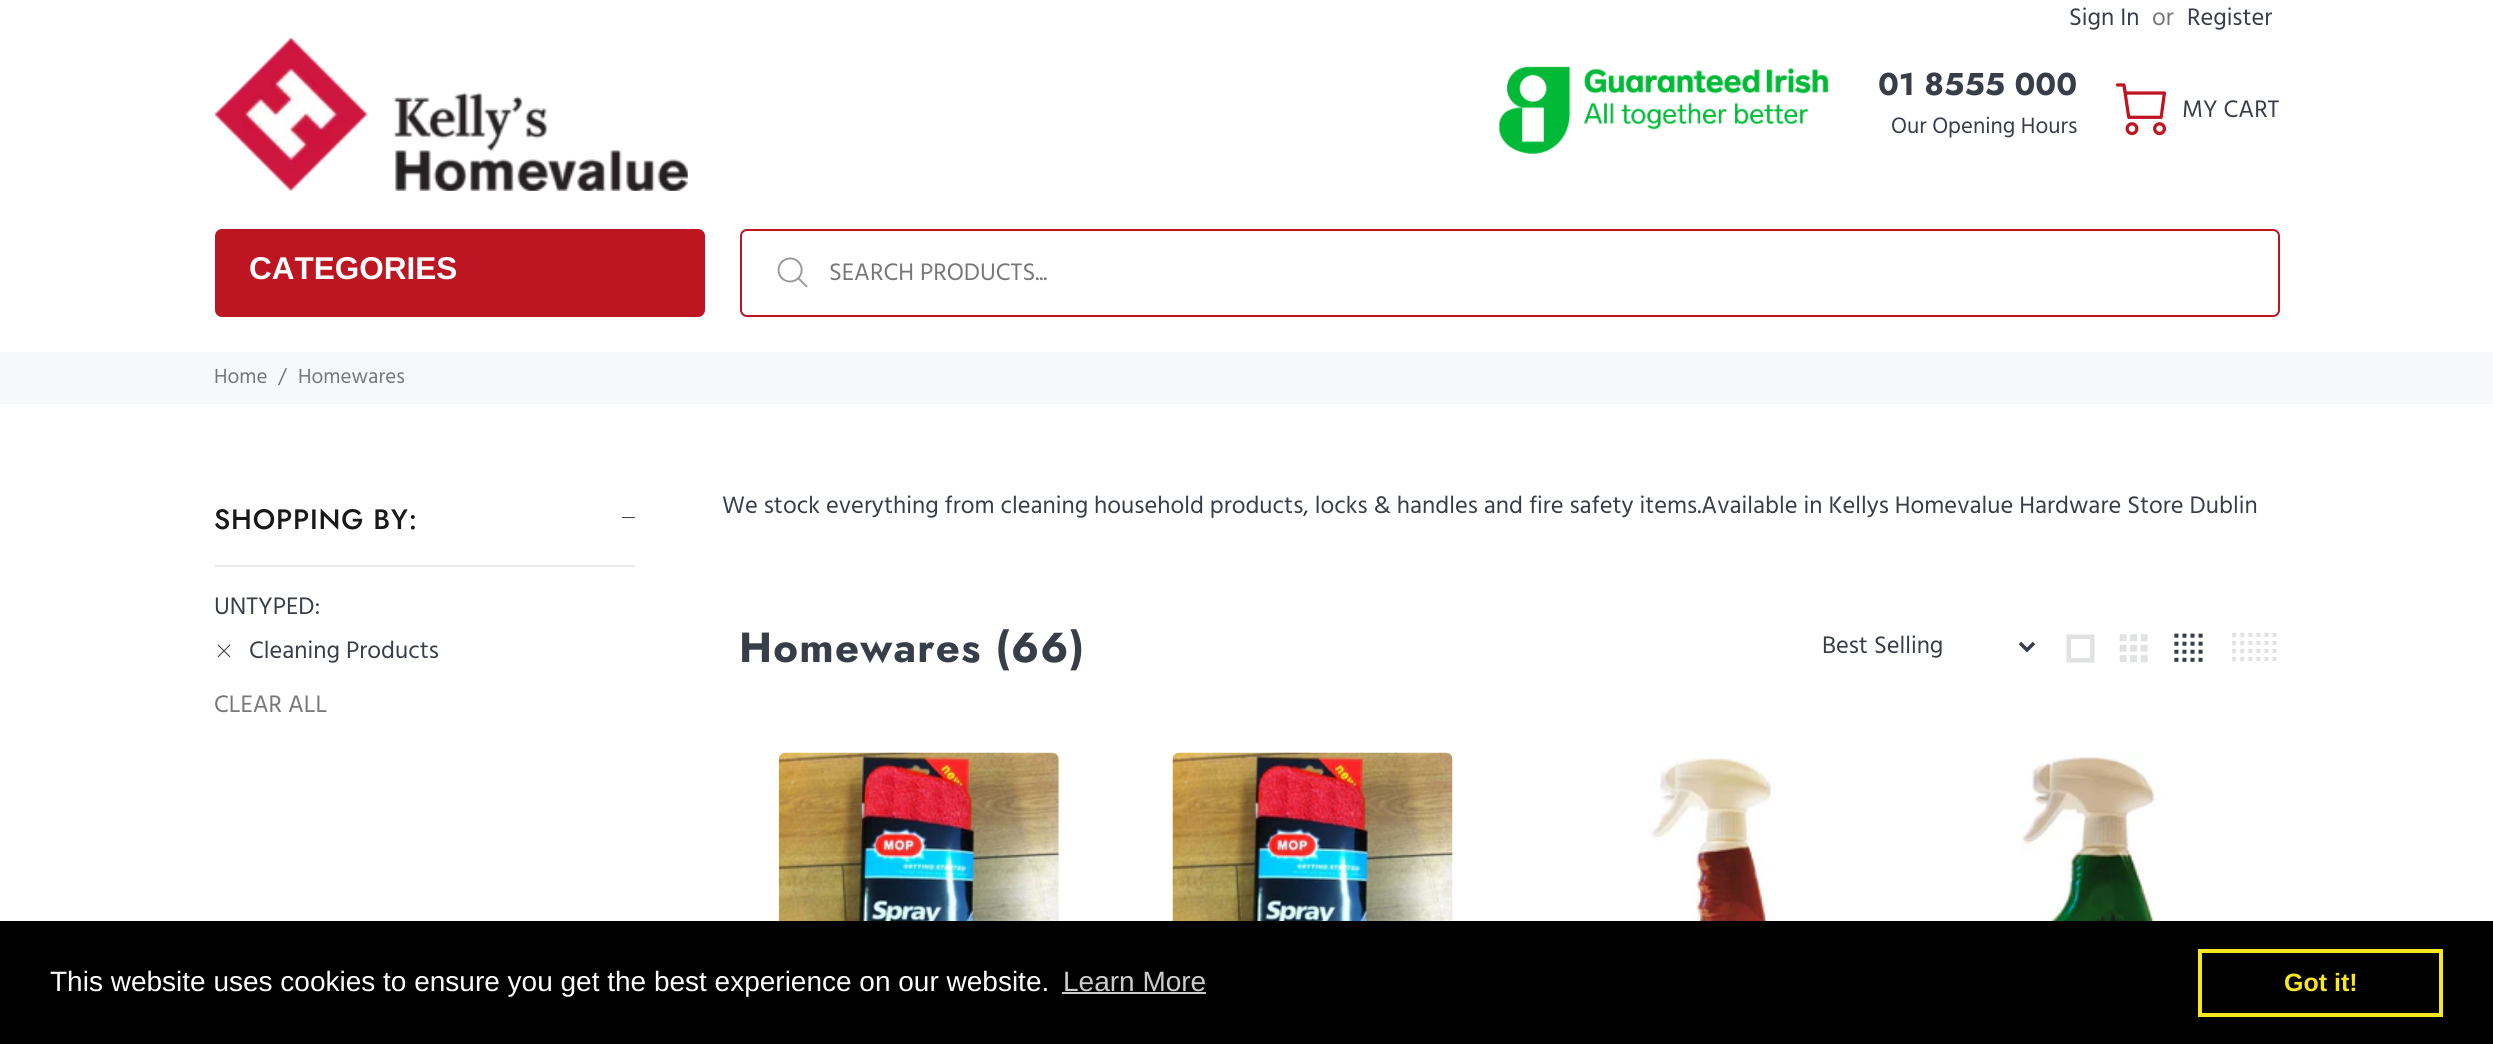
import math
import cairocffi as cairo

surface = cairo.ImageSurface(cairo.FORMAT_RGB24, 2493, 1044)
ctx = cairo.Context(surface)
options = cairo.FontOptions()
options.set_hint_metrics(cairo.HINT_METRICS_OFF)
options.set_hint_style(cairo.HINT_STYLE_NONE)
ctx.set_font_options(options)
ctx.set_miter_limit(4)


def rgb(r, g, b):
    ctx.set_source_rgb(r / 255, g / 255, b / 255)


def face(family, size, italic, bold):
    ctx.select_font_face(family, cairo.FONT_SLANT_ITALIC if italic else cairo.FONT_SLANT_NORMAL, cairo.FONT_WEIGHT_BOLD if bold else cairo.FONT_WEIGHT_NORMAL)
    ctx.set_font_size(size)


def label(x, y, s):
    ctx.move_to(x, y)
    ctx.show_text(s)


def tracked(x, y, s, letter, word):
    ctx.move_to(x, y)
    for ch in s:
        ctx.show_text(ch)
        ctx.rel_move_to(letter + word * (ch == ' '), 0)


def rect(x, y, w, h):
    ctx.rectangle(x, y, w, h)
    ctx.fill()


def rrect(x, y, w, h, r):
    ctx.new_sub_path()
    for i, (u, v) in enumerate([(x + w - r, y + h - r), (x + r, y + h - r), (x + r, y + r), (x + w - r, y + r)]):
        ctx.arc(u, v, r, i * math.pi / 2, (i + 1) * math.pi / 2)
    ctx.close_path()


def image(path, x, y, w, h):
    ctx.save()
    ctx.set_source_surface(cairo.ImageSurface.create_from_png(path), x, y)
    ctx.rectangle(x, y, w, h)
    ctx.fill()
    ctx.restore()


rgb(255, 255, 255)
ctx.paint()
face('Hind', 24.5, 0, 0)
rgb(55, 62, 72)
label(2069, 25, 'Sign In')
rgb(119, 119, 119)
label(2152, 25, 'or')
rgb(55, 62, 72)
label(2187, 25, 'Register')
image('image0.png', 215, 38, 473, 153)
image('image1.png', 1498, 66, 331, 88)
face('Jost', 31.5, 0, 1)
label(1878, 95, '01 8555 000')
face('Hind', 22.75, 0, 0)
label(1891, 133, 'Our Opening Hours')
image('image2.png', 2115, 83, 51, 53)
face('Hind', 24.5, 0, 0)
label(2182, 117, 'MY CART')
rgb(190, 21, 34)
rrect(215, 229, 490, 88, 7)
ctx.fill()
face('Liberation Sans', 31.5, 0, 1)
rgb(255, 255, 255)
label(249, 279, 'CATEGORIES')
rrect(741, 230, 1538, 86, 6)
rgb(190, 21, 34)
ctx.stroke()
image('image3.png', 777, 257, 31, 31)
face('Hind', 24.5, 0, 0)
rgb(119, 119, 119)
label(829, 280, 'SEARCH PRODUCTS...')
rgb(247, 248, 250)
rect(0, 352, 2493, 52)
face('Hind', 21, 0, 0)
rgb(119, 119, 119)
label(214, 383, 'Home')
label(278, 383, '/')
label(298, 383, 'Homewares')
rgb(233, 231, 231)
rect(215, 565, 420, 2)
face('Jost Medium', 28, 0, 0)
rgb(25, 25, 25)
tracked(214, 529, 'SHOPPING BY:', 0.8, 0)
image('image4.png', 621, 517, 14, 2)
face('Hind', 24.5, 0, 0)
rgb(55, 62, 72)
label(214, 614, 'UNTYPED:')
image('image5.png', 217, 644, 14, 14)
label(249, 658, 'Cleaning Products')
rgb(119, 119, 119)
label(214, 712, 'CLEAR ALL')
rgb(55, 62, 72)
label(722, 513, 'We stock everything from cleaning household products, locks & handles and fire safety items.Available in Kellys Homevalue Hardware Store Dublin')
face('Jost', 42, 0, 1)
tracked(739, 662, 'Homewares (66)', 1.25, 0)
ctx.new_path()
ctx.move_to(2020, 643)
ctx.line_to(2027, 650)
ctx.line_to(2034, 643)
ctx.set_line_width(3.5)
ctx.stroke()
face('Hind', 24.5, 0, 0)
label(1822, 653, 'Best Selling')
rgb(225, 226, 228)
ctx.new_path()
ctx.move_to(2066.5, 662.5)
ctx.line_to(2066.5, 634.5)
ctx.line_to(2094.5, 634.5)
ctx.line_to(2094.5, 662.5)
ctx.close_path()
ctx.move_to(2071, 658)
ctx.line_to(2090, 658)
ctx.line_to(2090, 639)
ctx.line_to(2071, 639)
ctx.close_path()
ctx.fill()
image('image6.png', 2119, 634, 29, 29)
image('image7.png', 2174, 633, 29, 29)
image('image8.png', 2232, 632, 45, 29)
image('image9.png', 778, 752, 281, 169)
image('image10.png', 1172, 752, 281, 169)
image('image11.png', 1638, 757, 139, 164)
image('image12.png', 2021, 753, 152, 168)
rgb(0, 0, 0)
rect(0, 921, 2493, 123)
face('Liberation Sans', 28, 0, 0)
rgb(255, 255, 255)
label(50, 991, 'This website uses cookies to ensure you get the best experience on our website.')
rgb(204, 204, 204)
label(1063, 991, 'Learn More')
rect(1062, 992, 144, 2)
ctx.rectangle(2200, 951, 241, 64)
rgb(248, 231, 28)
ctx.set_line_width(4)
ctx.stroke()
face('Liberation Sans', 25, 0, 1)
label(2284, 991, 'Got it!')
surface.write_to_png('render.png')
